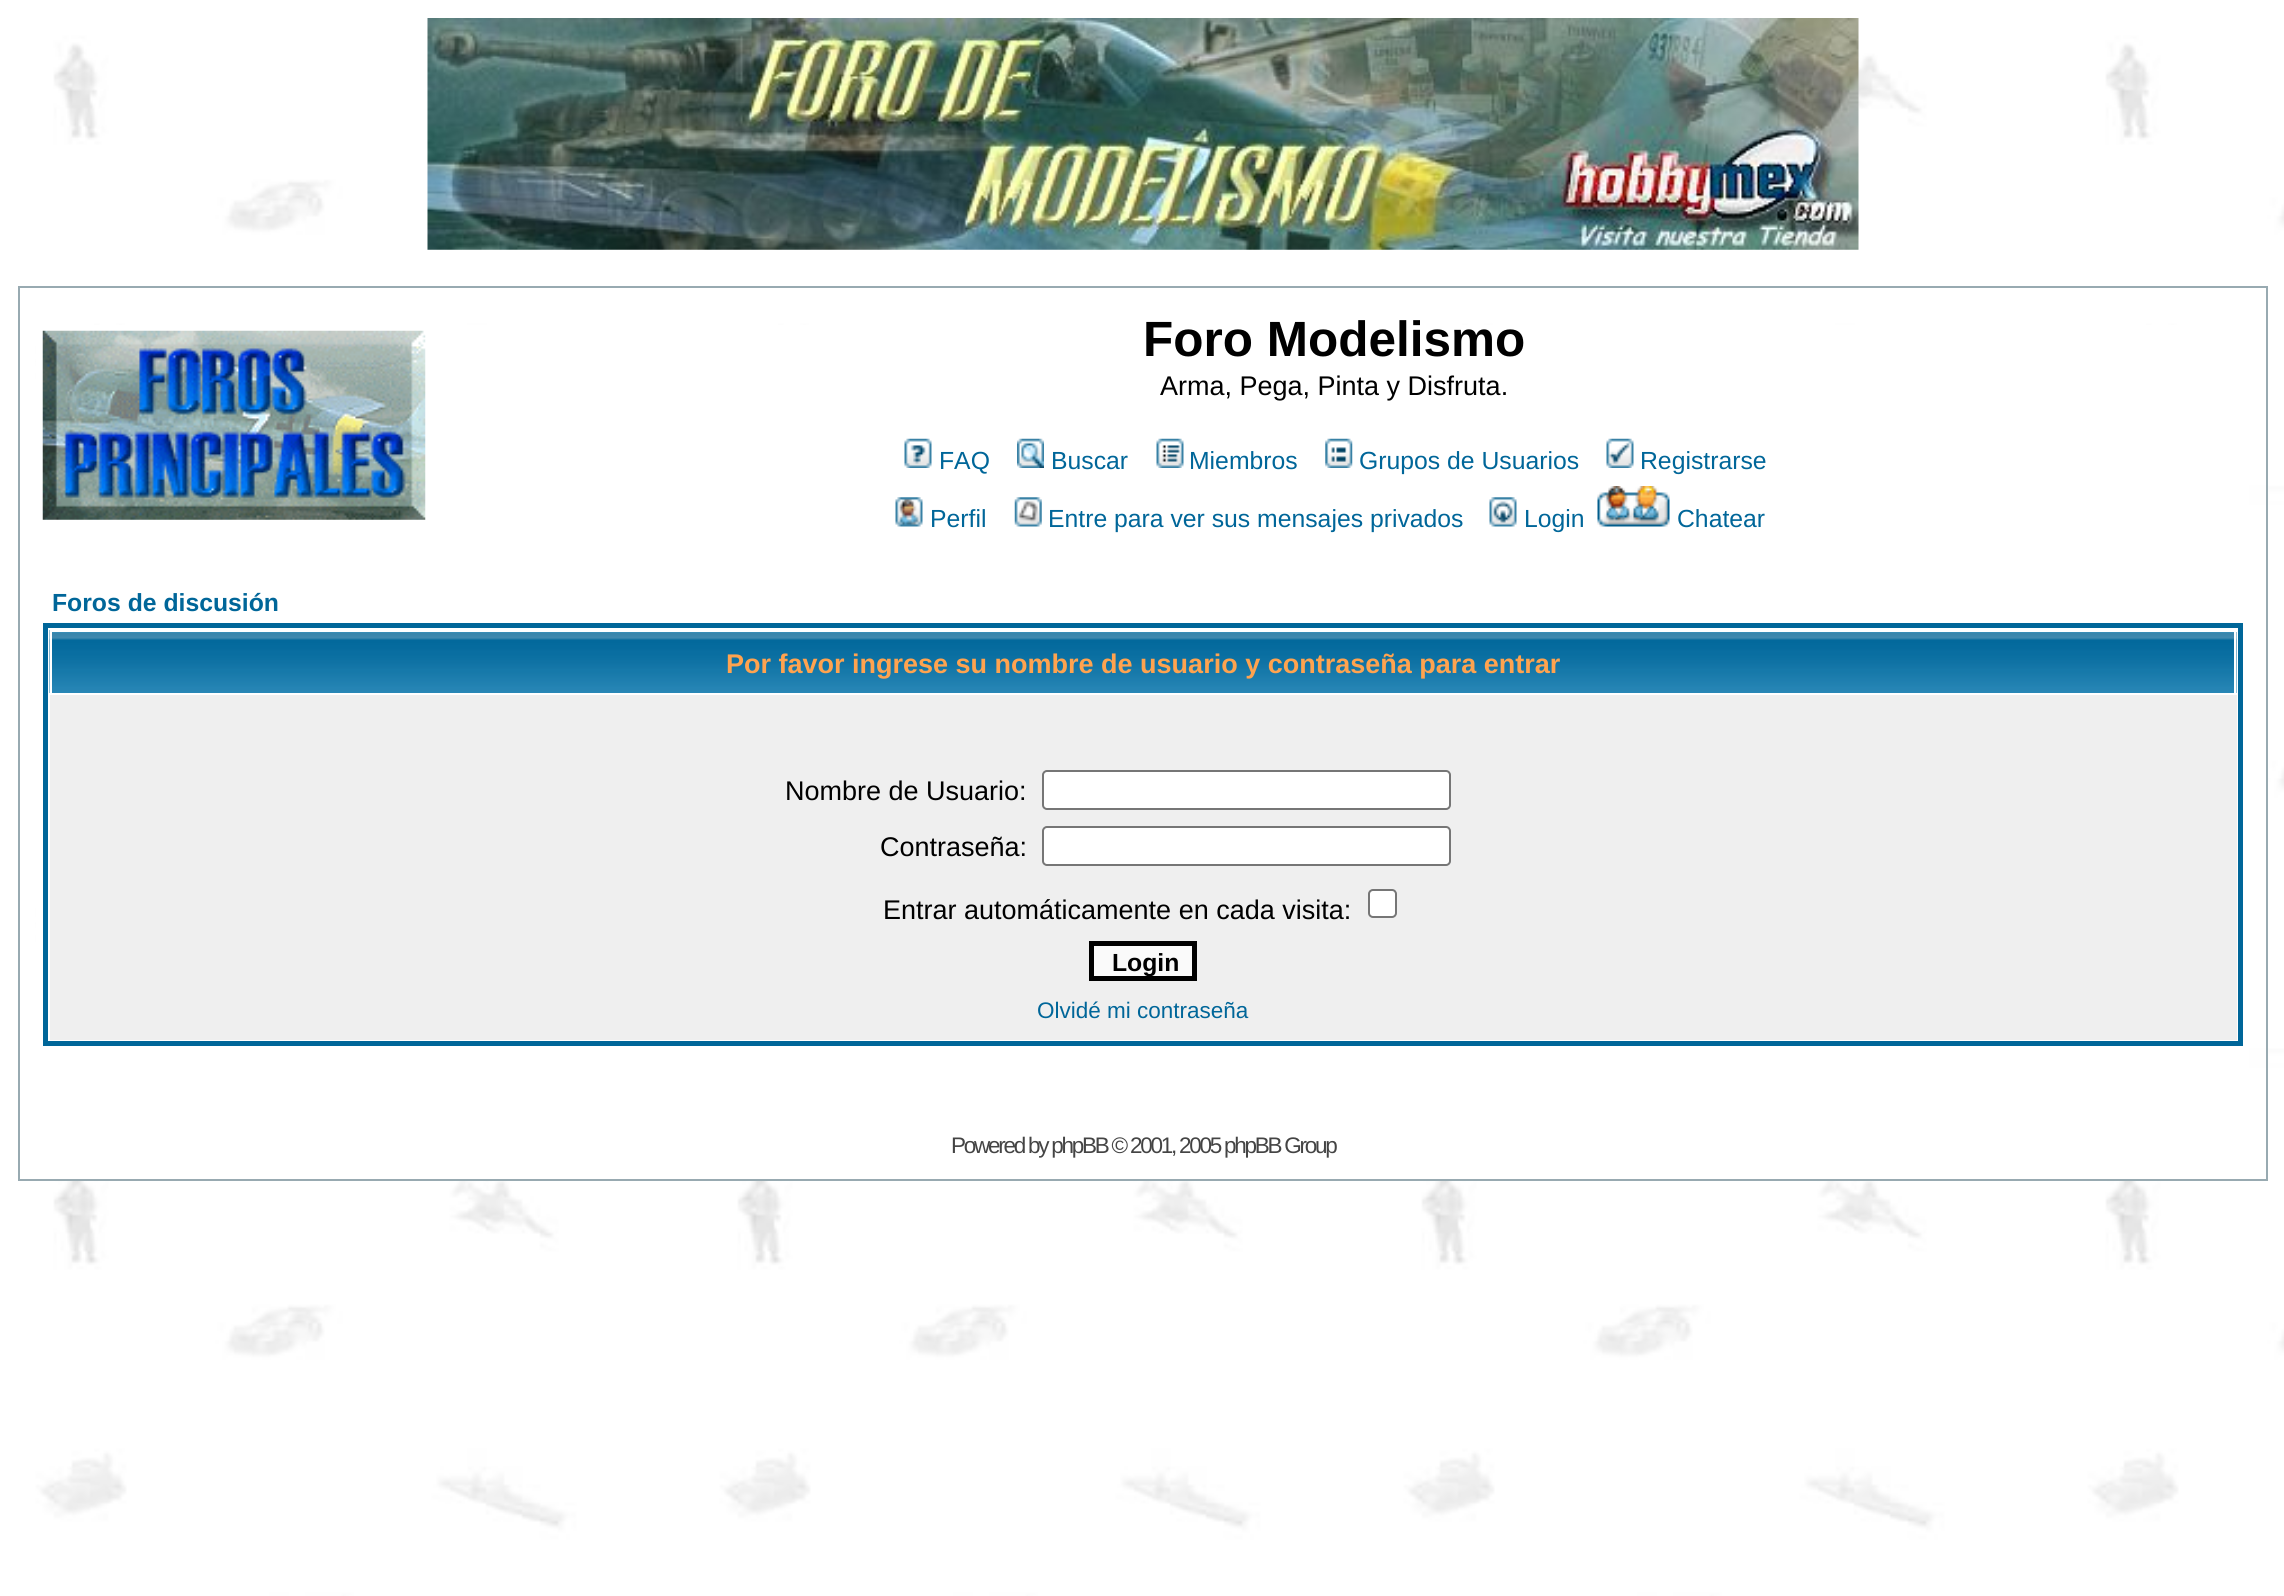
import math
import cairocffi as cairo

surface = cairo.ImageSurface(cairo.FORMAT_RGB24, 2284, 1596)
ctx = cairo.Context(surface)
options = cairo.FontOptions()
options.set_hint_metrics(cairo.HINT_METRICS_OFF)
options.set_hint_style(cairo.HINT_STYLE_NONE)
ctx.set_font_options(options)
ctx.set_miter_limit(4)


def rgb(r, g, b):
    ctx.set_source_rgb(r / 255, g / 255, b / 255)


def face(family, size, italic, bold):
    ctx.select_font_face(family, cairo.FONT_SLANT_ITALIC if italic else cairo.FONT_SLANT_NORMAL, cairo.FONT_WEIGHT_BOLD if bold else cairo.FONT_WEIGHT_NORMAL)
    ctx.set_font_size(size)


def label(x, y, s):
    ctx.move_to(x, y)
    ctx.show_text(s)


def tracked(x, y, s, letter, word):
    ctx.move_to(x, y)
    for ch in s:
        ctx.show_text(ch)
        ctx.rel_move_to(letter + word * (ch == ' '), 0)


def rect(x, y, w, h):
    ctx.rectangle(x, y, w, h)
    ctx.fill()


def rrect(x, y, w, h, r):
    ctx.new_sub_path()
    for i, (u, v) in enumerate([(x + w - r, y + h - r), (x + r, y + h - r), (x + r, y + r), (x + w - r, y + r)]):
        ctx.arc(u, v, r, i * math.pi / 2, (i + 1) * math.pi / 2)
    ctx.close_path()


def image(path, x, y, w, h):
    ctx.save()
    ctx.set_source_surface(cairo.ImageSurface.create_from_png(path), x, y)
    ctx.rectangle(x, y, w, h)
    ctx.fill()
    ctx.restore()


rgb(255, 255, 255)
ctx.paint()
image('image0.png', 0, 0, 2284, 1596)
image('image1.png', 427, 18, 1432, 232)
rgb(255, 255, 255)
rect(36, 325, 2143, 854)
ctx.rectangle(19, 287, 2248, 893)
rgb(152, 170, 177)
ctx.stroke()
image('image2.png', 42, 330, 384, 190)
face('Liberation Sans', 49.5, 0, 1)
rgb(0, 0, 0)
label(1143, 356, 'Foro Modelismo')
face('Liberation Sans', 27, 0, 0)
label(1160, 395, 'Arma, Pega, Pinta y Disfruta.')
image('image3.png', 904, 438, 28, 30)
face('Liberation Sans', 24.75, 0, 0)
rgb(0, 102, 153)
label(939, 469, 'FAQ')
image('image4.png', 1017, 438, 27, 30)
label(1051, 469, 'Buscar')
image('image5.png', 1156, 438, 28, 30)
label(1189, 469, 'Miembros')
image('image6.png', 1325, 438, 28, 30)
label(1359, 469, 'Grupos de Usuarios')
image('image7.png', 1606, 438, 28, 30)
label(1640, 469, 'Registrarse')
image('image8.png', 895, 497, 28, 30)
label(930, 527, 'Perfil')
image('image9.png', 1014, 497, 28, 30)
label(1048, 527, 'Entre para ver sus mensajes privados')
image('image10.png', 1489, 497, 28, 30)
label(1524, 527, 'Login')
image('image11.png', 1597, 486, 73, 41)
label(1677, 527, 'Chatear')
face('Liberation Sans', 24.75, 0, 1)
label(52, 611, 'Foros de discusión')
ctx.rectangle(45.5, 625.5, 2195, 418)
ctx.set_line_width(5)
ctx.stroke()
image('image12.png', 49, 630, 2188, 63)
rgb(255, 255, 255)
rect(50, 630, 2187, 2)
rect(2234, 630, 2, 63)
rect(50, 630, 2, 63)
face('Liberation Sans', 27, 0, 1)
rgb(255, 163, 79)
label(726, 673, 'Por favor ingrese su nombre de usuario y contraseña para entrar')
rgb(239, 239, 239)
rect(50, 695, 2187, 345)
face('Liberation Sans', 27, 0, 0)
rgb(0, 0, 0)
label(785, 800, 'Nombre de Usuario:')
rgb(255, 255, 255)
rrect(1043, 771, 407, 38, 4)
ctx.fill_preserve()
rgb(118, 118, 118)
ctx.set_line_width(2)
ctx.stroke()
rgb(0, 0, 0)
label(880, 856, 'Contraseña:')
rgb(255, 255, 255)
rrect(1043, 827, 407, 38, 4)
ctx.fill_preserve()
rgb(118, 118, 118)
ctx.stroke()
rgb(0, 0, 0)
label(883, 919, 'Entrar automáticamente en cada visita:')
rgb(255, 255, 255)
rrect(1369, 890, 27, 27, 4)
ctx.fill_preserve()
rgb(118, 118, 118)
ctx.stroke()
rgb(250, 250, 250)
ctx.rectangle(1091.5, 943.5, 103, 35)
ctx.fill_preserve()
rgb(0, 0, 0)
ctx.set_line_width(5)
ctx.stroke()
face('Liberation Sans', 24.75, 0, 1)
label(1112, 971, 'Login')
face('Liberation Sans', 22.5, 0, 0)
rgb(0, 102, 153)
label(1037, 1018, 'Olvidé mi contraseña')
rgb(68, 68, 68)
tracked(951, 1153, 'Powered by phpBB © 2001, 2005 phpBB Group', -2.25, 0)
surface.write_to_png('render.png')
